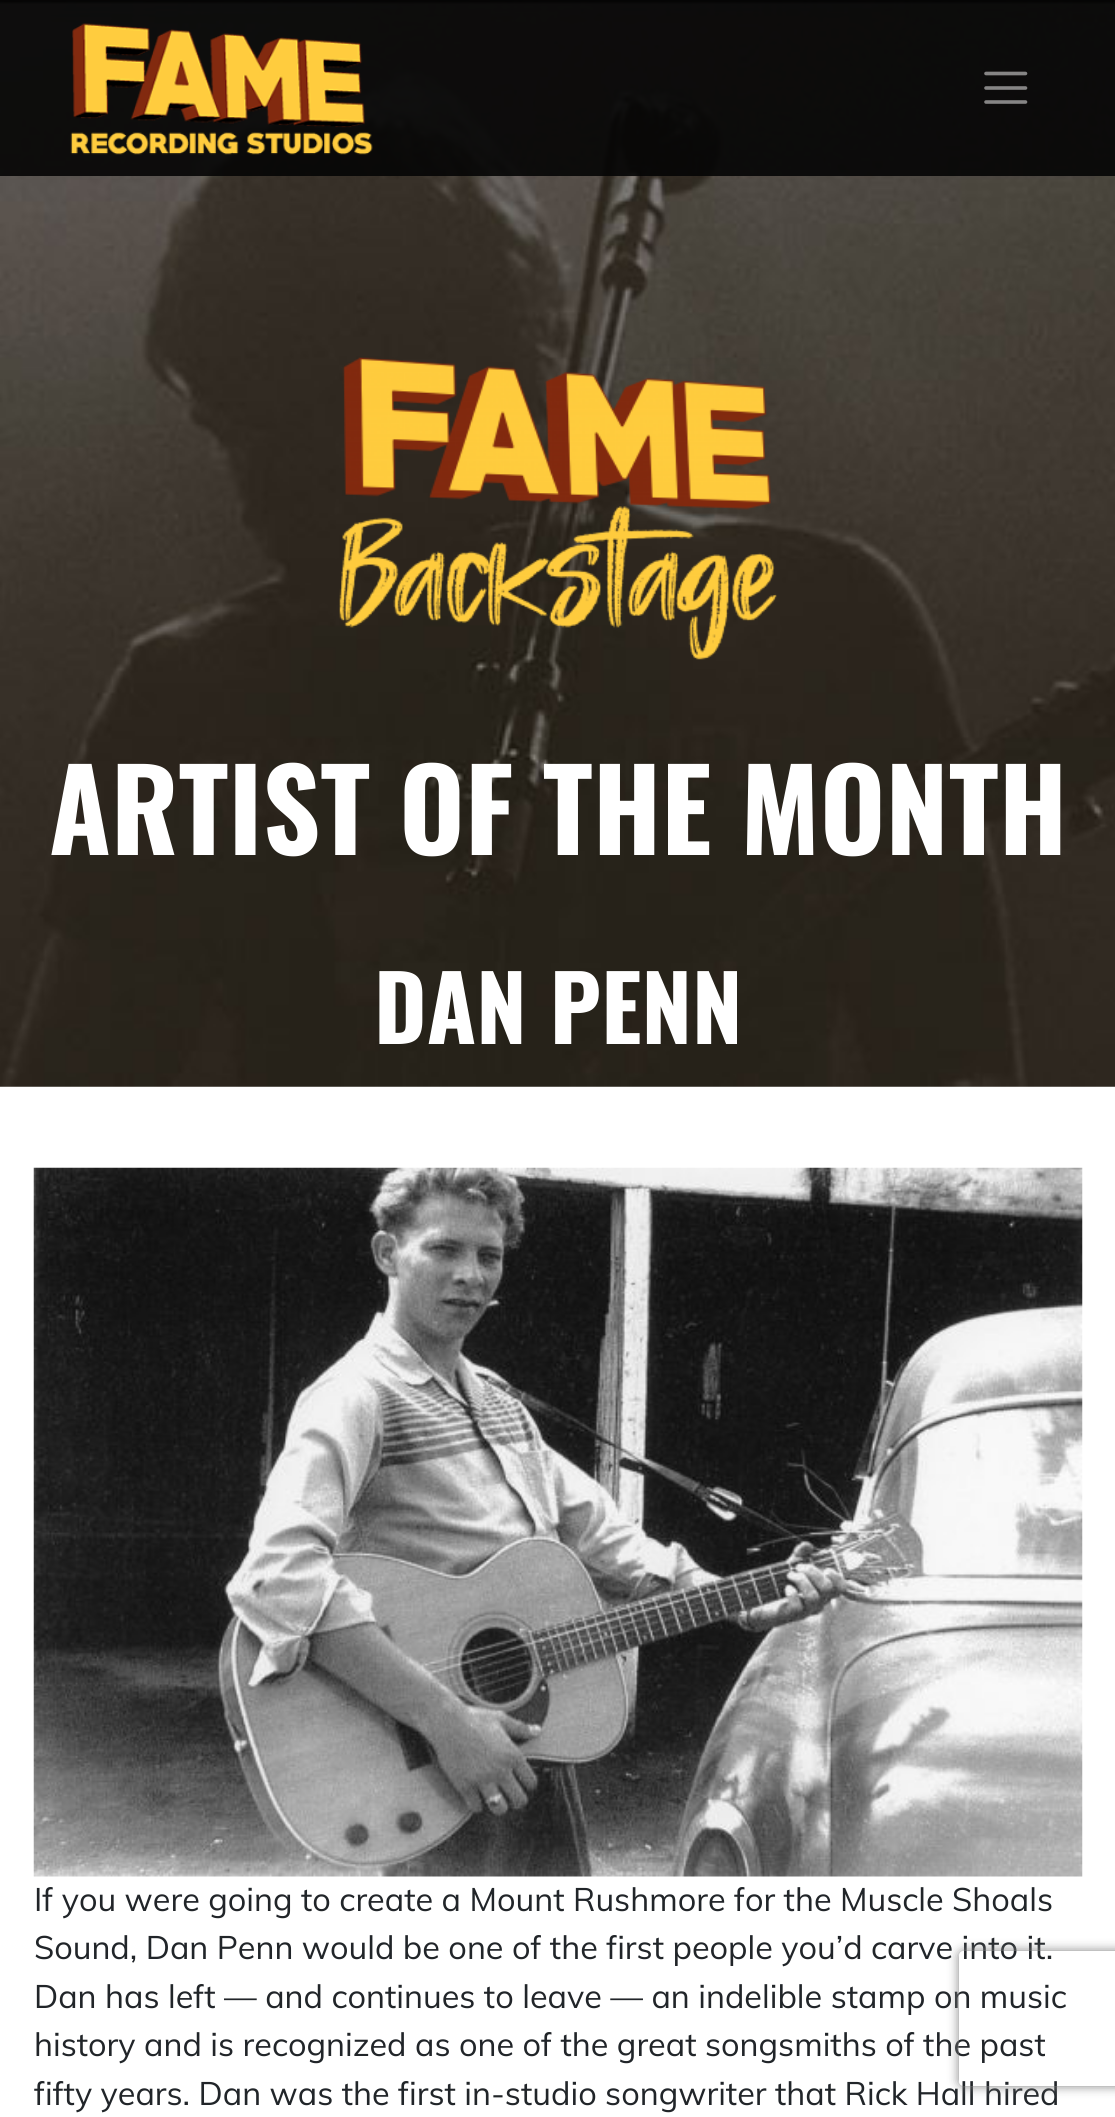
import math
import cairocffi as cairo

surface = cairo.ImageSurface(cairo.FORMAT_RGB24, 1115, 2117)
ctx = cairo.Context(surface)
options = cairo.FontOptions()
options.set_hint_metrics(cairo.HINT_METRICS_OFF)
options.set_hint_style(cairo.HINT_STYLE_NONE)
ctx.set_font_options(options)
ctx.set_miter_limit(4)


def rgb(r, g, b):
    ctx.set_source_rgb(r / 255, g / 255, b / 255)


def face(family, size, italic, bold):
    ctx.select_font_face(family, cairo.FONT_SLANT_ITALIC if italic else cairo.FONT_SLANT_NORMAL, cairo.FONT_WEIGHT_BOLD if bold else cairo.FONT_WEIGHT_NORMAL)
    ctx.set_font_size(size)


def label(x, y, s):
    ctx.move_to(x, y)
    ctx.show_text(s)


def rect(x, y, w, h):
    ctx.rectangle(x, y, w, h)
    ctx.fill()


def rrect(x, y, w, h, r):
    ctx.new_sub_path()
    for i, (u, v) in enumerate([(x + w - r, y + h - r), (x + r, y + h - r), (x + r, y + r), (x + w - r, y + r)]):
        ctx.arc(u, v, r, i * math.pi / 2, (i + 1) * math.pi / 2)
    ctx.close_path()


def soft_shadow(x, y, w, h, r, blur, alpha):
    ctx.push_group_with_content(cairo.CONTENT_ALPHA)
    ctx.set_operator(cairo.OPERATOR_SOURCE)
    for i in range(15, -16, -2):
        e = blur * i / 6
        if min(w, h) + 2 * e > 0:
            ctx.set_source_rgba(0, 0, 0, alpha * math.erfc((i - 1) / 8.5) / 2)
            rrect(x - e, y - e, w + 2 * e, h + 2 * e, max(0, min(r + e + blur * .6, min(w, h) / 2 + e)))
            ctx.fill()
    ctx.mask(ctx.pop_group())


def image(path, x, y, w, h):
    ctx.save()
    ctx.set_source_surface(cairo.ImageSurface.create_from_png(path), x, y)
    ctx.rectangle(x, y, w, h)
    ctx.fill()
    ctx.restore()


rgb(255, 255, 255)
ctx.paint()
image('image1.png', 0, 0, 1115, 1087)
ctx.set_source_rgba(0.02, 0.02, 0.02, 0.9)
rect(0, 0, 1115, 176)
image('image0.png', 70, 23, 303, 132)
ctx.new_path()
ctx.move_to(986, 73.5)
ctx.line_to(1025.5, 73.5)
ctx.move_to(986, 88)
ctx.line_to(1025.5, 88)
ctx.move_to(986, 102)
ctx.line_to(1025.5, 102)
rgb(134, 133, 133)
ctx.set_line_width(3.6)
ctx.set_line_cap(cairo.LINE_CAP_ROUND)
ctx.stroke()
image('image2.png', 339, 357, 438, 303)
face('Oswald', 112.5, 0, 1)
rgb(255, 255, 255)
label(49, 855, 'ARTIST OF THE MONTH')
face('Oswald', 90, 0, 1)
label(374, 1044, 'DAN PENN')
image('image3.png', 33, 1167, 1050, 710)
face('Muli', 32.4, 0, 0)
rgb(33, 37, 41)
label(34, 1911, 'If you were going to create a Mount Rushmore for the Muscle Shoals')
label(34, 1959, 'Sound, Dan Penn would be one of the first people you’d carve into it.')
label(34, 2008, 'Dan has left — and continues to leave — an indelible stamp on music')
label(34, 2056, 'history and is recognized as one of the great songsmiths of the past')
label(34, 2105, 'fifty years. Dan was the first in-studio songwriter that Rick Hall hired')
ctx.save()
ctx.set_fill_rule(cairo.FILL_RULE_EVEN_ODD)
ctx.new_path()
ctx.move_to(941, 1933)
ctx.line_to(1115, 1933)
ctx.line_to(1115, 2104)
ctx.line_to(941, 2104)
ctx.close_path()
ctx.move_to(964, 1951)
ctx.line_to(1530, 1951)
ctx.curve_to(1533, 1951, 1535, 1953, 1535, 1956)
ctx.line_to(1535, 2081)
ctx.curve_to(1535, 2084, 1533, 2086, 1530, 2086)
ctx.line_to(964, 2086)
ctx.curve_to(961, 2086, 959, 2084, 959, 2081)
ctx.line_to(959, 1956)
ctx.curve_to(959, 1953, 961, 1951, 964, 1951)
ctx.close_path()
ctx.clip()
rgb(128, 128, 128)
soft_shadow(959, 1951, 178, 135, 5, 5.5, 1)
ctx.restore()
surface.write_to_png('render.png')
